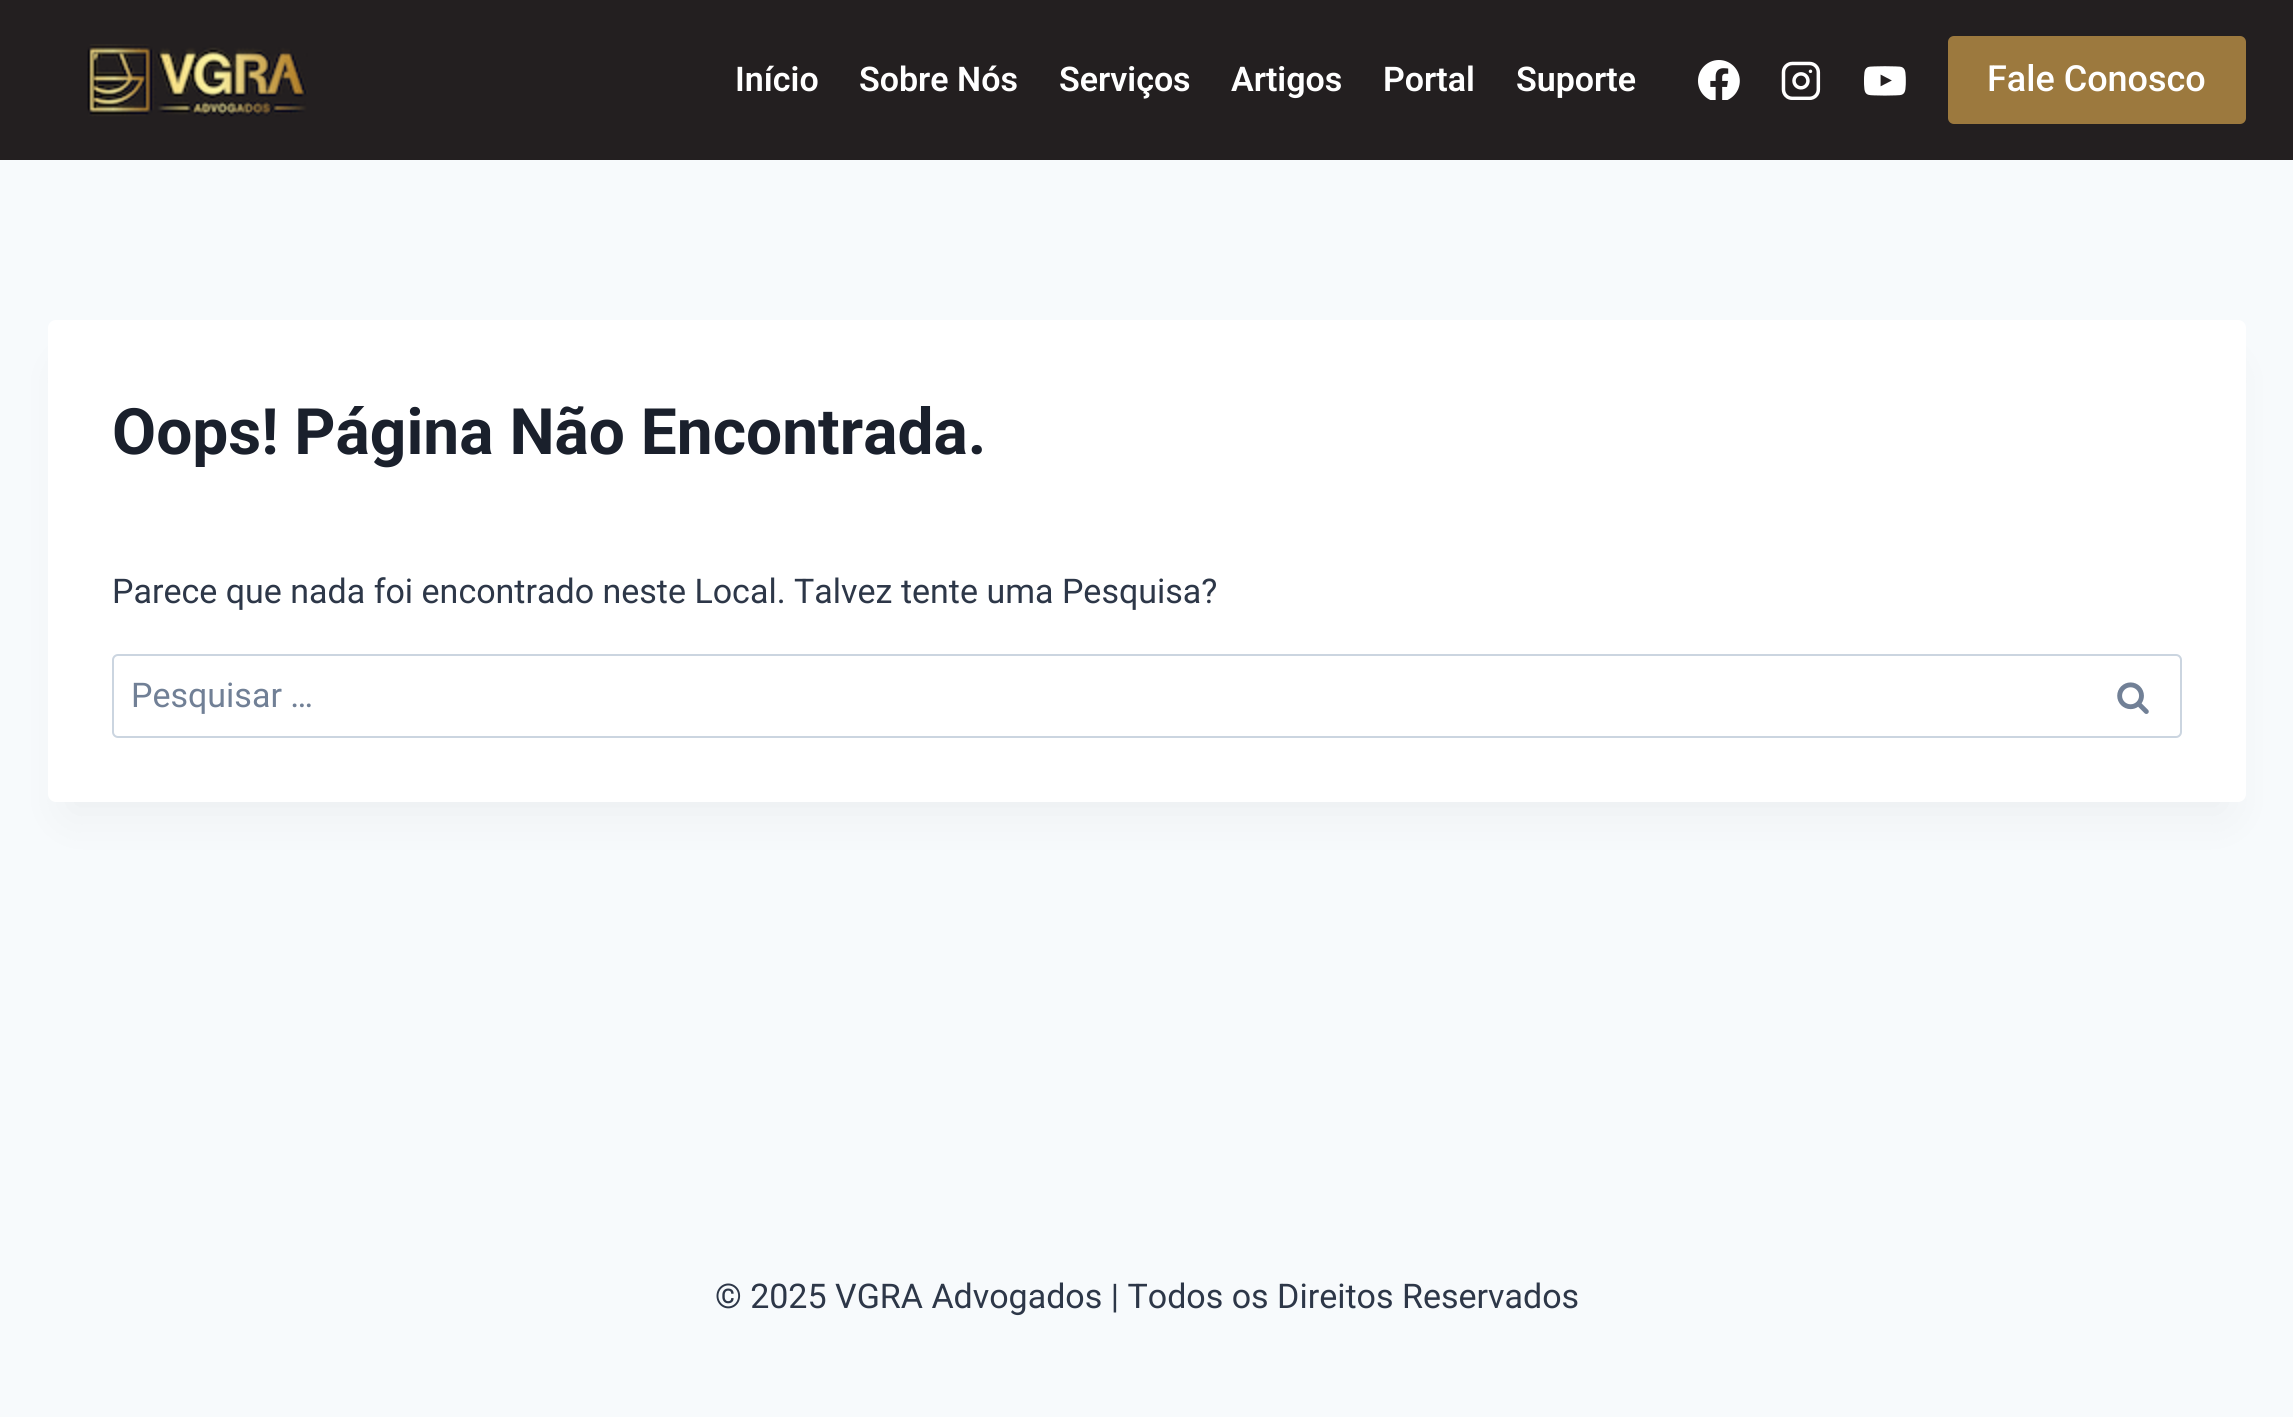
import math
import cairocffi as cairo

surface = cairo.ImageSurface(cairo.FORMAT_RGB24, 2293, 1417)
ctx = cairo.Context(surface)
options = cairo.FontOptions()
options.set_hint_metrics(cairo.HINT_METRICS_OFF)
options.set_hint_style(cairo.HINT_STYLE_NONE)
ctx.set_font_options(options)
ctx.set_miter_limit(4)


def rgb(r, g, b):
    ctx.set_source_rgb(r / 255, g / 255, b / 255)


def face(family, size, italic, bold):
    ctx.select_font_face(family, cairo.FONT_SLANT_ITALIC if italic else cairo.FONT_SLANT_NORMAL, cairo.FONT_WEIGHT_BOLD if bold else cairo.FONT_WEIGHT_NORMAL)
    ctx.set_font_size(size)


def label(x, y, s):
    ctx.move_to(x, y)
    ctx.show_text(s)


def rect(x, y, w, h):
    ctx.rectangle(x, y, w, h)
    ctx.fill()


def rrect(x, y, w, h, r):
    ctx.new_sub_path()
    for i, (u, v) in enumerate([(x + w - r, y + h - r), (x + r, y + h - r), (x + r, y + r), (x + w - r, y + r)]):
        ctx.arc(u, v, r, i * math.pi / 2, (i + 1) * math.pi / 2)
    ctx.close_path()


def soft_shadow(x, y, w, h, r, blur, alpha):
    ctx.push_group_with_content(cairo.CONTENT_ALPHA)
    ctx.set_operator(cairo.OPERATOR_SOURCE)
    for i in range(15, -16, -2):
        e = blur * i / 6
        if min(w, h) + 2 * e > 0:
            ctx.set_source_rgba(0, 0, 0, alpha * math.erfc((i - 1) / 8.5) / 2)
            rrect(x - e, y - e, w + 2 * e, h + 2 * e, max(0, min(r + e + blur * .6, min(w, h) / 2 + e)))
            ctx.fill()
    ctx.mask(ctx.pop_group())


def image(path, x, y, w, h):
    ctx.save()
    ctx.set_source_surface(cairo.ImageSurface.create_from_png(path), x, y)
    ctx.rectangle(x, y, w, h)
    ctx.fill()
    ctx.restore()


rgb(247, 250, 252)
ctx.paint()
rgb(35, 31, 32)
rect(0, 0, 2293, 160)
image('image0.png', 87, 44, 221, 73)
face('Roboto SemiBold', 34, 0, 0)
rgb(255, 255, 255)
label(735, 91, 'Início')
label(859, 91, 'Sobre Nós')
label(1059, 91, 'Serviços')
label(1231, 91, 'Artigos')
label(1383, 91, 'Portal')
label(1516, 91, 'Suporte')
image('image1.png', 1698, 60, 42, 40)
image('image2.png', 1781, 61, 40, 39)
image('image3.png', 1864, 66, 42, 30)
rgb(156, 121, 62)
rrect(1948, 36, 298, 88, 6)
ctx.fill()
face('Roboto Medium', 36, 0, 0)
rgb(255, 255, 255)
label(1987, 91, 'Fale Conosco')
rgb(0, 0, 0)
soft_shadow(68, 370, 2158, 442, 0, 25, 0.05)
rgb(255, 255, 255)
rrect(48, 320, 2198, 482, 8)
ctx.fill()
face('Roboto', 64, 0, 1)
rgb(26, 32, 44)
label(112, 454, 'Oops! Página Não Encontrada.')
face('Roboto', 34, 0, 0)
rgb(45, 55, 72)
label(112, 603, 'Parece que nada foi encontrado neste Local. Talvez tente uma Pesquisa?')
rrect(113, 655, 2068, 82, 5)
rgb(203, 213, 224)
ctx.stroke()
rgb(113, 128, 150)
label(131, 707, 'Pesquisar …')
image('image4.png', 2117, 682, 32, 32)
rgb(45, 55, 72)
label(715, 1308, '© 2025 VGRA Advogados | Todos os Direitos Reservados')
surface.write_to_png('render.png')
